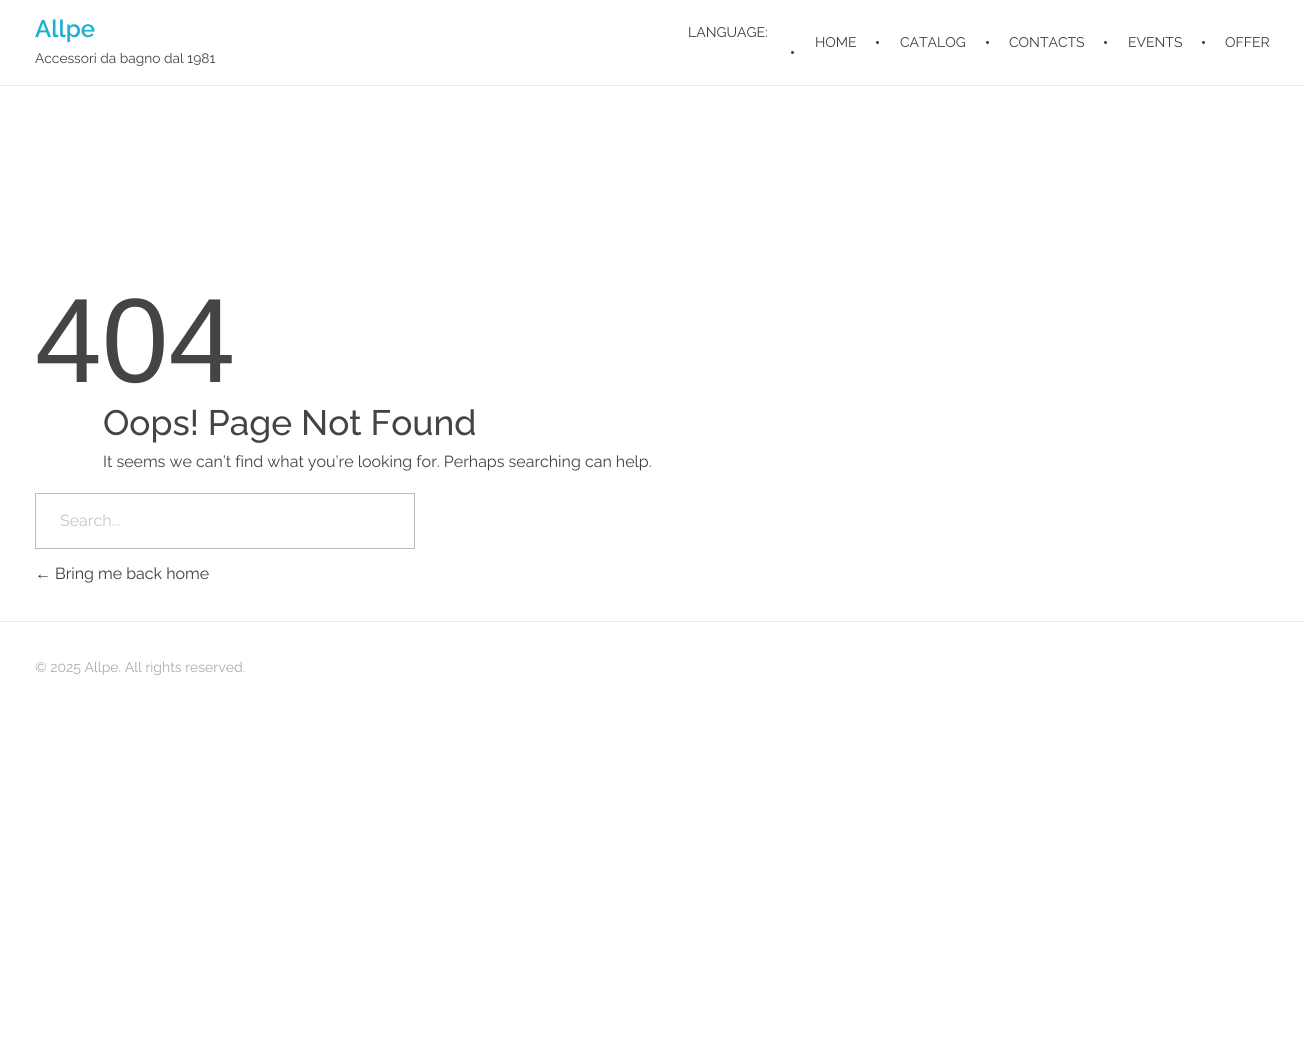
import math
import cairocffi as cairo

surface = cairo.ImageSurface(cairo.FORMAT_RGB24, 1305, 1042)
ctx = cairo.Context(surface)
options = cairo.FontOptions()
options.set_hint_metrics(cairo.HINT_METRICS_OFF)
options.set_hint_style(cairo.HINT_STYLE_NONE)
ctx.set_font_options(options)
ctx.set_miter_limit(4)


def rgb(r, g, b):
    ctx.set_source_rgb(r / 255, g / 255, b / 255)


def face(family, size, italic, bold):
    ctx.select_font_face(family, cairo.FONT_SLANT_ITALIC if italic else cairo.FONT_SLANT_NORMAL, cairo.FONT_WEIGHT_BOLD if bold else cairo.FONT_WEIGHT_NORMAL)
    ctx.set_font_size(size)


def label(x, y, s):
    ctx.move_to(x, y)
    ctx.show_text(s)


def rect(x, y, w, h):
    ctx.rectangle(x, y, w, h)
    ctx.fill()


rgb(255, 255, 255)
ctx.paint()
rgb(234, 234, 234)
rect(0, 85, 1305, 1)
face('Raleway SemiBold', 24, 0, 0)
rgb(27, 176, 206)
label(35, 37, 'Allpe')
face('Raleway', 13.75, 0, 0)
rgb(68, 68, 68)
label(35, 63, 'Accessori da bagno dal 1981')
face('Raleway', 14, 0, 0)
rgb(61, 61, 61)
label(688, 37, 'LANGUAGE:')
ctx.new_path()
ctx.arc(792.5, 52.5, 1.5, 0, 2 * math.pi)
ctx.fill()
label(815, 47, 'HOME')
ctx.new_path()
ctx.arc(877.5, 42.5, 1.5, 0, 2 * math.pi)
ctx.fill()
label(900, 47, 'CATALOG')
ctx.new_path()
ctx.arc(987.5, 42.5, 1.5, 0, 2 * math.pi)
ctx.fill()
label(1009, 47, 'CONTACTS')
ctx.new_path()
ctx.arc(1105.5, 42.5, 1.5, 0, 2 * math.pi)
ctx.fill()
label(1128, 47, 'EVENTS')
ctx.new_path()
ctx.arc(1203.5, 42.5, 1.5, 0, 2 * math.pi)
ctx.fill()
label(1225, 47, 'OFFER')
face('Liberation Sans', 120, 0, 0)
rgb(68, 68, 68)
label(35, 382, '404')
face('Raleway Medium', 35.25, 0, 0)
label(103, 435, 'Oops! Page Not Found')
face('Raleway', 16, 0, 0)
label(103, 467, 'It seems we can’t find what you’re looking for. Perhaps searching can help.')
ctx.rectangle(35.5, 493.5, 379, 55)
rgb(187, 187, 187)
ctx.set_line_width(1)
ctx.stroke()
rgb(197, 197, 197)
label(60, 526, 'Search...')
face('Liberation Sans', 16, 0, 0)
rgb(61, 61, 61)
label(35, 579, '←')
face('Raleway', 16, 0, 0)
label(55, 579, 'Bring me back home')
rgb(234, 234, 234)
rect(0, 621, 1305, 1)
face('Raleway', 14, 0, 0)
rgb(170, 170, 170)
label(35, 672, '© 2025 Allpe. All rights reserved.')
surface.write_to_png('render.png')
